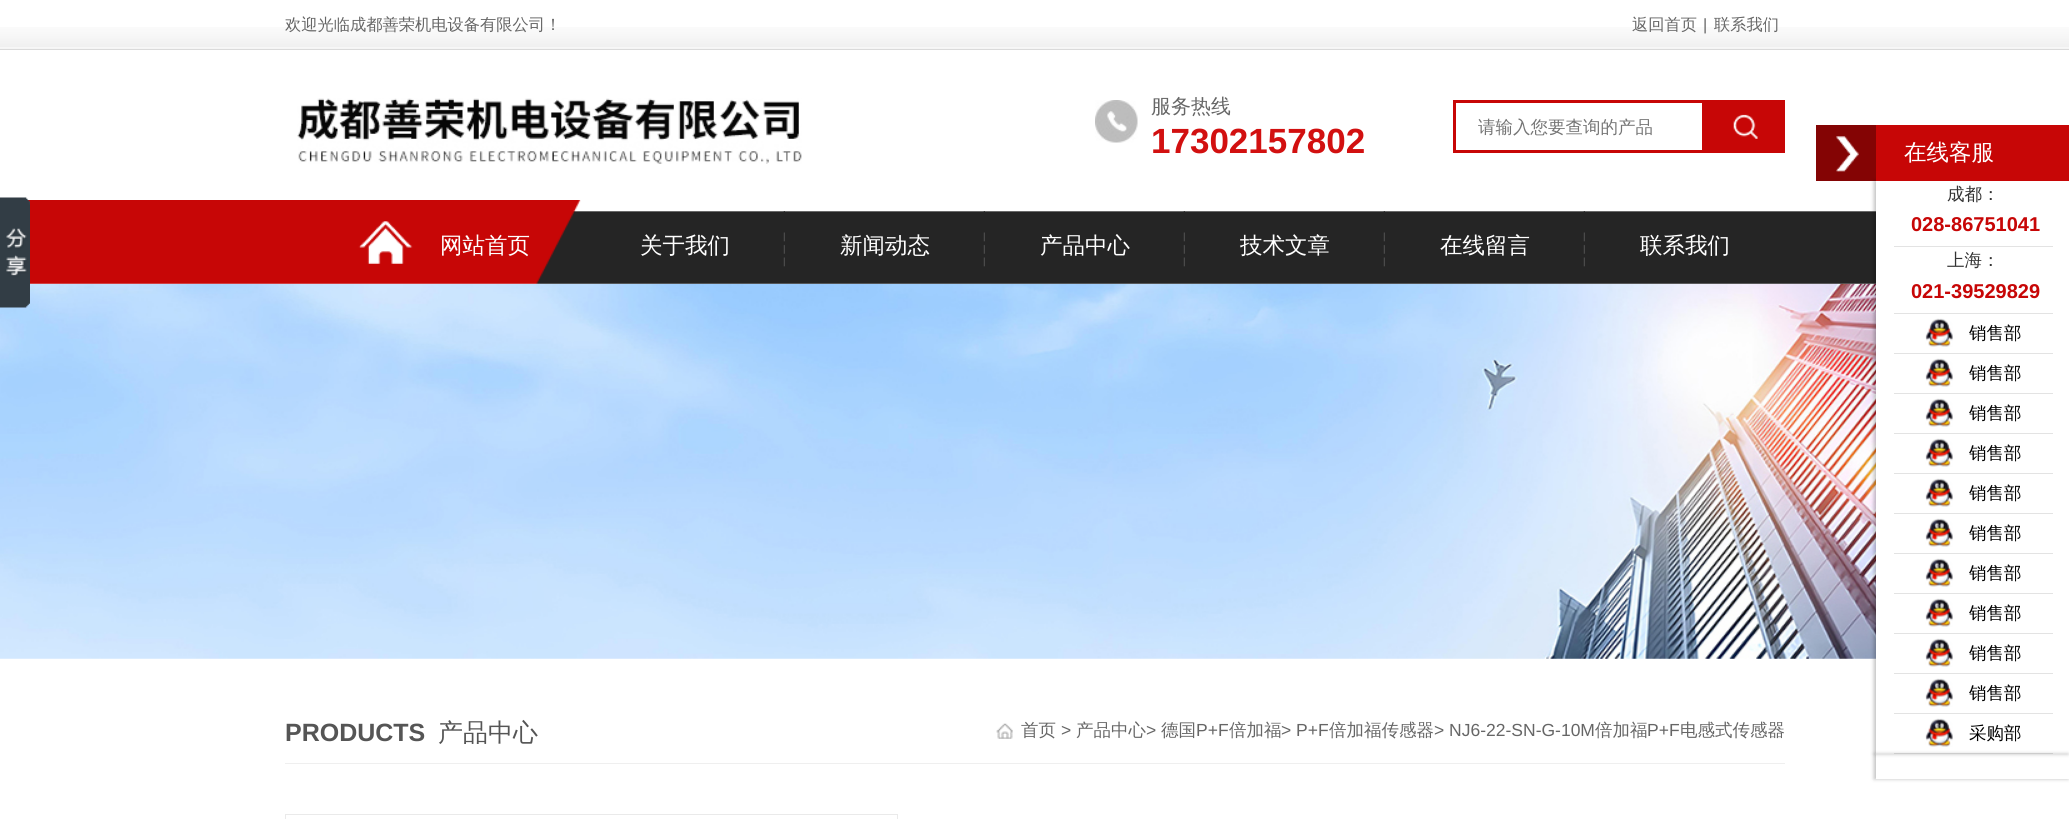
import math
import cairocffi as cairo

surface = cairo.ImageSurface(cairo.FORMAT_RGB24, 2069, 819)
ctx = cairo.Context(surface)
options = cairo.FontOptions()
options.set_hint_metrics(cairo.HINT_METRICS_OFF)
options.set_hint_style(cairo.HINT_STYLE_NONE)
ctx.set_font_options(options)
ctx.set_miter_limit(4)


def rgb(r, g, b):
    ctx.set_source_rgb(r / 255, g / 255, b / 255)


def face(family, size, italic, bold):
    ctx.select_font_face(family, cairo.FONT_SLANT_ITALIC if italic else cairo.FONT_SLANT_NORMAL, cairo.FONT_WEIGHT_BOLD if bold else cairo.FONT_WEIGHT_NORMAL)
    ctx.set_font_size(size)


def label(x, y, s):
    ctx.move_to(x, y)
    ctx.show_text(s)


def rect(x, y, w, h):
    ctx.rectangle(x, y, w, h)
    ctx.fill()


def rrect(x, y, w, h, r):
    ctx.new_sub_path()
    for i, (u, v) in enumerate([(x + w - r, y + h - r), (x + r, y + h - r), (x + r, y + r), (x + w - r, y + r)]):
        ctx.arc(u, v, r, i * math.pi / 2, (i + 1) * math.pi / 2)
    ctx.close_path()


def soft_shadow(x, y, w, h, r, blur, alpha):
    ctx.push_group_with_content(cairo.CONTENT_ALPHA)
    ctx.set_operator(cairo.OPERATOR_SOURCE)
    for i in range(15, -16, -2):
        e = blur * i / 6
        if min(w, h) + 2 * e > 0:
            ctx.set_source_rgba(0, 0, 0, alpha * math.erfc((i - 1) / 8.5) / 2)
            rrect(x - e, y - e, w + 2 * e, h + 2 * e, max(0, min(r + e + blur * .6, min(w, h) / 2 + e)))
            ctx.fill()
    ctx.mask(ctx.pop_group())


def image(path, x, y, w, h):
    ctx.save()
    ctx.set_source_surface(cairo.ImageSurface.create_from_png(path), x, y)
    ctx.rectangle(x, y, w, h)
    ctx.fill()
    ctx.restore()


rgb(255, 255, 255)
ctx.paint()
image('image0.png', 0, 27, 2069, 23)
face('WenQuanYi Zen Hei Medium', 16.25, 0, 0)
rgb(102, 102, 102)
label(285, 30, '欢迎光临成都善荣机电设备有限公司！')
label(1632, 30, '返回首页')
face('Liberation Sans', 16.25, 0, 0)
label(1703, 30, '|')
face('WenQuanYi Zen Hei Medium', 16.25, 0, 0)
label(1714, 30, '联系我们')
image('image10.png', 0, 283, 1876, 376)
image('image8.png', 27, 200, 1849, 84)
image('image1.png', 0, 197, 30, 111)
image('image2.png', 297, 98, 505, 66)
image('image3.png', 1095, 100, 43, 43)
face('WenQuanYi Zen Hei Medium', 20, 0, 0)
label(1151, 113, '服务热线')
face('Liberation Sans', 35, 0, 1)
rgb(210, 16, 16)
label(1151, 153, '17302157802')
ctx.rectangle(1454.5, 101.5, 249, 50)
rgb(199, 6, 6)
ctx.set_line_width(3)
ctx.stroke()
face('WenQuanYi Zen Hei Medium', 17.5, 0, 0)
rgb(117, 117, 117)
label(1478, 133, '请输入您要查询的产品')
rgb(199, 6, 6)
rect(1705, 100, 80, 53)
image('image4.png', 1733, 114, 25, 25)
rgb(132, 4, 4)
rect(1816, 125, 60, 56)
image('image5.png', 1836, 136, 23, 36)
rgb(0, 0, 0)
soft_shadow(1874, 181, 194, 573, 0, 2, 0.25)
rgb(199, 6, 6)
rect(1876, 125, 193, 56)
face('WenQuanYi Zen Hei Medium', 22.5, 0, 0)
rgb(255, 255, 255)
label(1904, 160, '在线客服')
rect(1876, 181, 193, 573)
face('WenQuanYi Zen Hei Medium', 17.5, 0, 0)
rgb(51, 51, 51)
label(1947, 200, '成都：')
rgb(227, 227, 227)
rect(1894, 246, 159, 1)
face('Liberation Sans', 20, 0, 1)
rgb(199, 6, 6)
label(1911, 231, '028-86751041')
face('WenQuanYi Zen Hei Medium', 17.5, 0, 0)
rgb(51, 51, 51)
label(1947, 266, '上海：')
rgb(227, 227, 227)
rect(1894, 313, 159, 1)
face('Liberation Sans', 20, 0, 1)
rgb(199, 6, 6)
label(1911, 298, '021-39529829')
rgb(227, 227, 227)
rect(1894, 353, 159, 1)
image('image6.png', 1925, 318, 28, 29)
face('WenQuanYi Zen Hei Medium', 17.5, 0, 0)
rgb(0, 0, 0)
label(1969, 339, '销售部')
rgb(227, 227, 227)
rect(1894, 393, 159, 1)
image('image7.png', 1925, 358, 28, 29)
rgb(0, 0, 0)
label(1969, 379, '销售部')
rgb(227, 227, 227)
rect(1894, 433, 159, 1)
image('image7.png', 1925, 398, 28, 29)
rgb(0, 0, 0)
label(1969, 419, '销售部')
rgb(227, 227, 227)
rect(1894, 473, 159, 1)
image('image7.png', 1925, 438, 28, 29)
rgb(0, 0, 0)
label(1969, 459, '销售部')
rgb(227, 227, 227)
rect(1894, 513, 159, 1)
image('image7.png', 1925, 478, 28, 29)
rgb(0, 0, 0)
label(1969, 499, '销售部')
rgb(227, 227, 227)
rect(1894, 553, 159, 1)
image('image7.png', 1925, 518, 28, 29)
rgb(0, 0, 0)
label(1969, 539, '销售部')
rgb(227, 227, 227)
rect(1894, 593, 159, 1)
image('image7.png', 1925, 558, 28, 29)
rgb(0, 0, 0)
label(1969, 579, '销售部')
rgb(227, 227, 227)
rect(1894, 633, 159, 1)
image('image7.png', 1925, 598, 28, 29)
rgb(0, 0, 0)
label(1969, 619, '销售部')
rgb(227, 227, 227)
rect(1894, 673, 159, 1)
image('image7.png', 1925, 638, 28, 29)
rgb(0, 0, 0)
label(1969, 659, '销售部')
rgb(227, 227, 227)
rect(1894, 713, 159, 1)
image('image7.png', 1925, 678, 28, 29)
rgb(0, 0, 0)
label(1969, 699, '销售部')
rgb(227, 227, 227)
rect(1894, 753, 159, 1)
image('image7.png', 1925, 718, 28, 29)
rgb(0, 0, 0)
label(1969, 739, '采购部')
ctx.save()
ctx.set_fill_rule(cairo.FILL_RULE_EVEN_ODD)
ctx.new_path()
ctx.move_to(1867, 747)
ctx.line_to(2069, 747)
ctx.line_to(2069, 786)
ctx.line_to(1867, 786)
ctx.close_path()
ctx.move_to(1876, 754)
ctx.line_to(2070, 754)
ctx.line_to(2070, 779)
ctx.line_to(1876, 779)
ctx.close_path()
ctx.clip()
rgb(0, 0, 0)
soft_shadow(1874, 754, 194, 25, 0, 2, 0.25)
ctx.restore()
face('WenQuanYi Zen Hei Medium', 22.5, 0, 0)
rgb(255, 255, 255)
label(440, 253, '网站首页')
image('image9.png', 783, 211, 2, 56)
label(640, 253, '关于我们')
image('image9.png', 983, 211, 2, 56)
label(840, 253, '新闻动态')
image('image9.png', 1183, 211, 2, 56)
label(1040, 253, '产品中心')
image('image9.png', 1383, 211, 2, 56)
label(1240, 253, '技术文章')
image('image9.png', 1583, 211, 2, 56)
label(1440, 253, '在线留言')
label(1640, 253, '联系我们')
rgb(239, 239, 239)
rect(285, 763, 1500, 1)
face('Liberation Sans', 25, 0, 1)
rgb(85, 85, 85)
label(285, 741, 'PRODUCTS')
face('WenQuanYi Zen Hei Medium', 25, 0, 0)
label(438, 741, '产品中心')
image('image11.png', 996, 723, 17, 16)
face('WenQuanYi Zen Hei Medium', 17.5, 0, 0)
rgb(102, 102, 102)
label(1021, 736, '首页')
face('Liberation Sans', 17.5, 0, 0)
label(1061, 736, '>')
face('WenQuanYi Zen Hei Medium', 17.5, 0, 0)
label(1076, 736, '产品中心')
face('Liberation Sans', 17.5, 0, 0)
label(1146, 736, '>')
face('WenQuanYi Zen Hei Medium', 17.5, 0, 0)
label(1161, 736, '德国')
face('Liberation Sans', 17.5, 0, 0)
label(1196, 736, 'P+F')
face('WenQuanYi Zen Hei Medium', 17.5, 0, 0)
label(1229, 736, '倍加福')
face('Liberation Sans', 17.5, 0, 0)
label(1281, 736, '> P+F')
face('WenQuanYi Zen Hei Medium', 17.5, 0, 0)
label(1329, 736, '倍加福传感器')
face('Liberation Sans', 17.5, 0, 0)
label(1434, 736, '> NJ6-22-SN-G-10M')
face('WenQuanYi Zen Hei Medium', 17.5, 0, 0)
label(1595, 736, '倍加福')
face('Liberation Sans', 17.5, 0, 0)
label(1647, 736, 'P+F')
face('WenQuanYi Zen Hei Medium', 17.5, 0, 0)
label(1680, 736, '电感式传感器')
ctx.rectangle(285.5, 814.5, 612, 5)
rgb(234, 234, 234)
ctx.set_line_width(1)
ctx.stroke()
surface.write_to_png('render.png')
